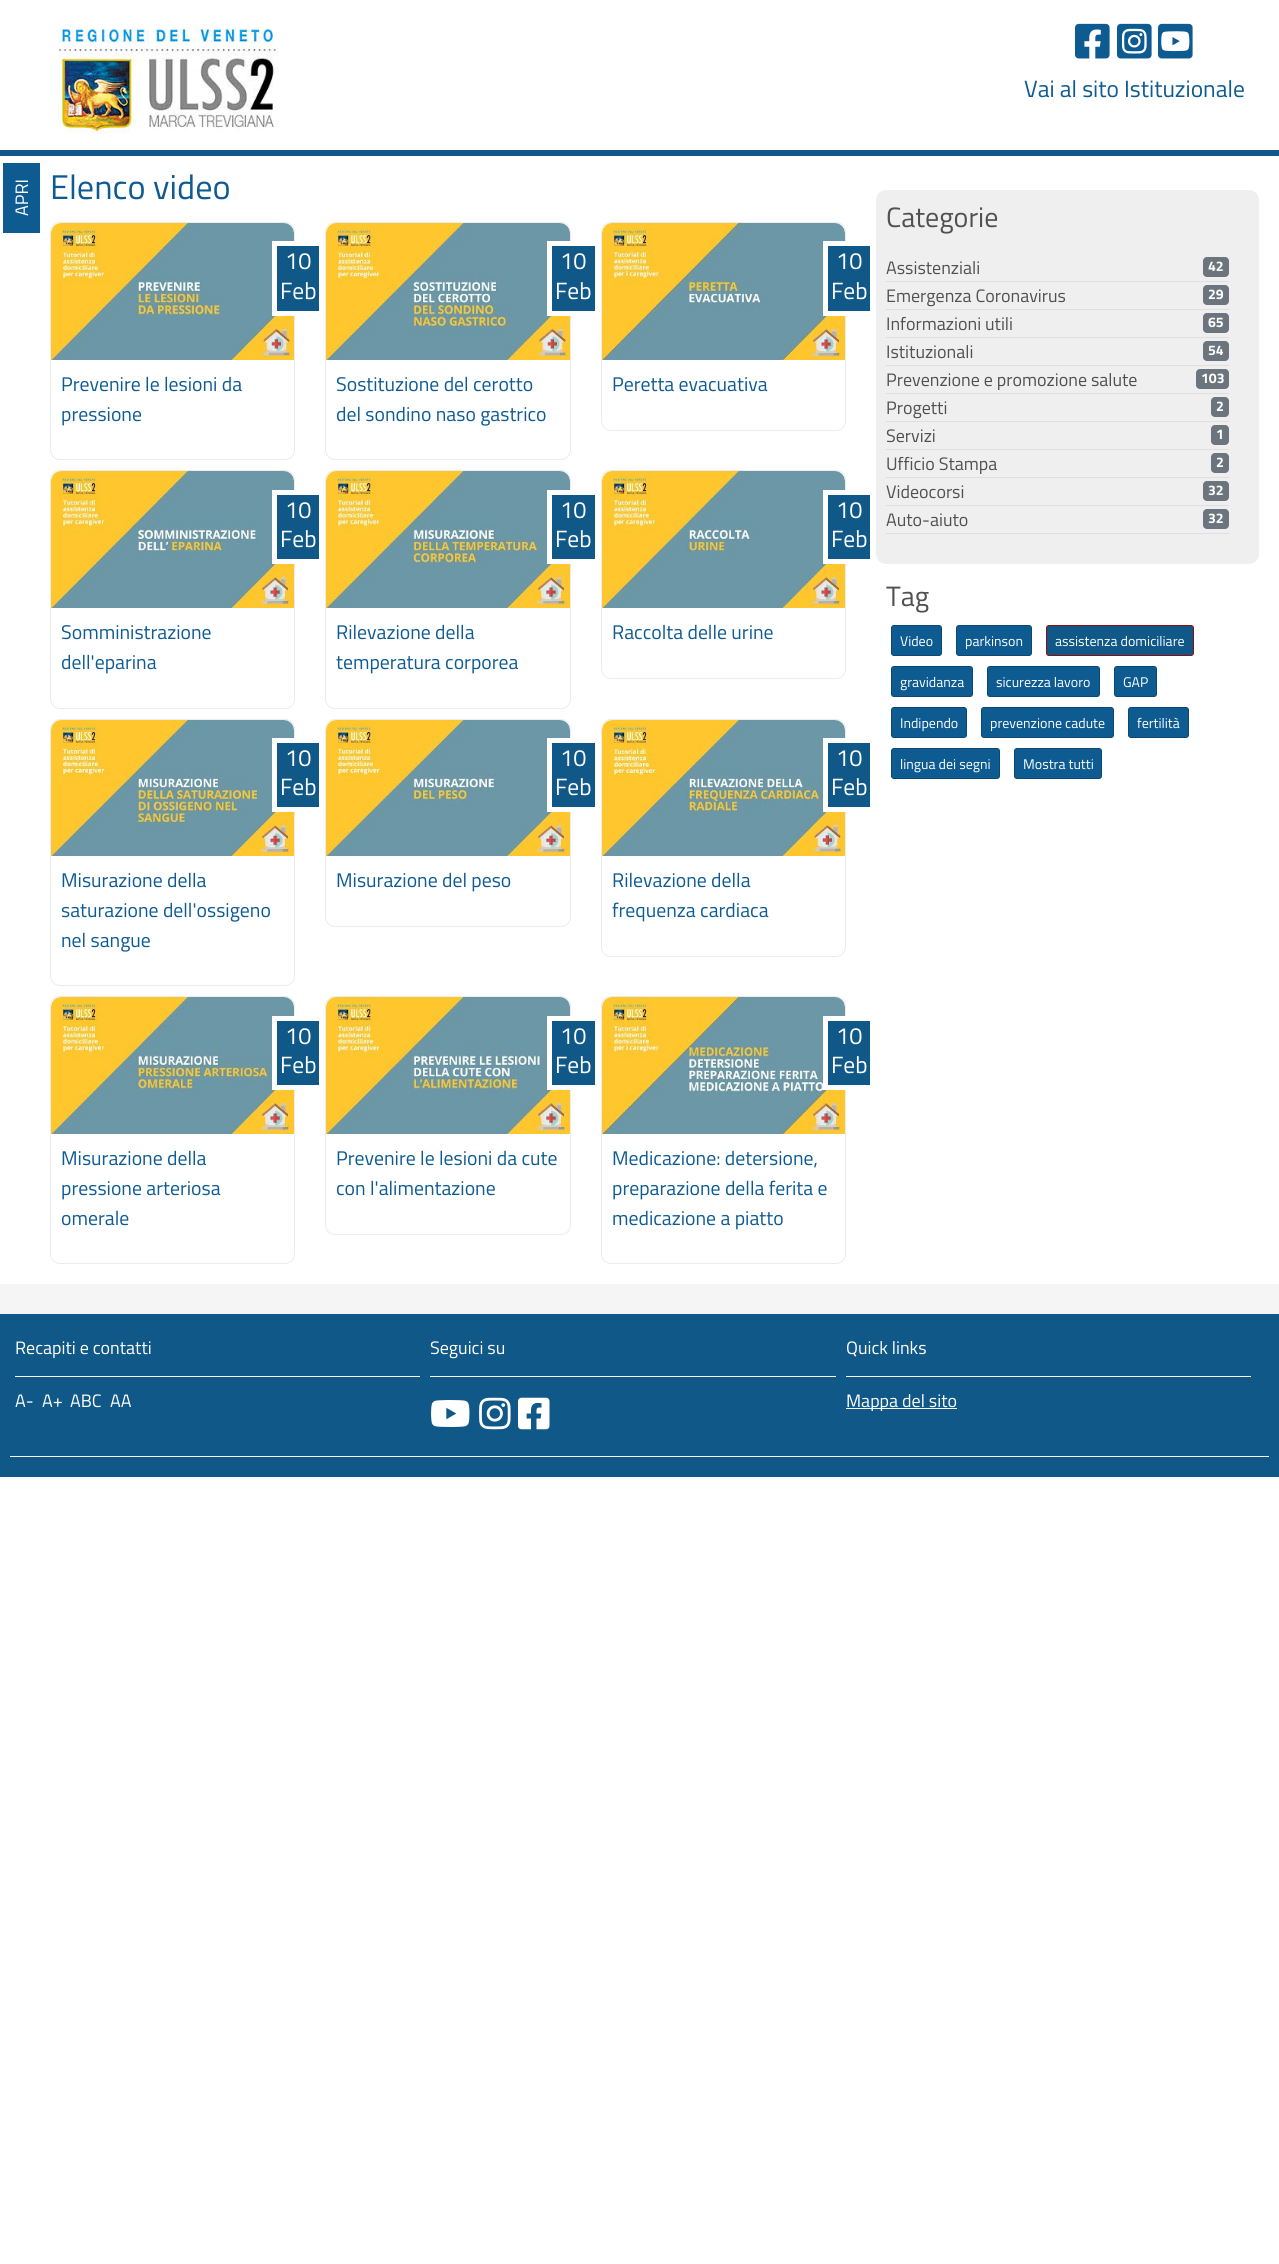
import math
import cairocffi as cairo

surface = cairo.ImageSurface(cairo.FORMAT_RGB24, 1279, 2264)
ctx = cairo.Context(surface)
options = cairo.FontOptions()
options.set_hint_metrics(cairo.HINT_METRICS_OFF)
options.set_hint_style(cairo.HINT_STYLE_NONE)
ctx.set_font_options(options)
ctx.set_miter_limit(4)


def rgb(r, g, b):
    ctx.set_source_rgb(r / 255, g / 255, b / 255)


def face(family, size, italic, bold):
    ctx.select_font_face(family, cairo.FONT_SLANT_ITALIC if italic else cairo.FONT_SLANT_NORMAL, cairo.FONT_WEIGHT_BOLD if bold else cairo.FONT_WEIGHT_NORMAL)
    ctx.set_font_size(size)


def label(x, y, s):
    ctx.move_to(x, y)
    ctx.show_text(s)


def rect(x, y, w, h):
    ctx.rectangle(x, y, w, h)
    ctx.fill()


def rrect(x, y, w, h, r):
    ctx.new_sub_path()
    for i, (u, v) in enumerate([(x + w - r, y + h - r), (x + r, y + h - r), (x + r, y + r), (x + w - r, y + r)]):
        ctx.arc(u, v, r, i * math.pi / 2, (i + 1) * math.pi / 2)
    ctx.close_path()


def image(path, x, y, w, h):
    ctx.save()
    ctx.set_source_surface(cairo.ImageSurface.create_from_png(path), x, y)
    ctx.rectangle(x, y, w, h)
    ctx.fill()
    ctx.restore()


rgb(255, 255, 255)
ctx.paint()
image('image0.png', 58, 29, 221, 105)
image('image1.png', 1075, 23, 35, 36)
image('image2.png', 1117, 23, 35, 36)
image('image3.png', 1158, 23, 35, 36)
face('Titillium Web', 23.5, 0, 0)
rgb(14, 91, 146)
label(1024, 97, 'Vai al sito Istituzionale')
rgb(15, 88, 135)
rect(0, 150, 1279, 6)
rgb(14, 91, 146)
rect(3, 163, 37, 70)
face('Titillium Web', 18, 0, 0)
rgb(255, 255, 255)
ctx.save()
ctx.translate(28, 216)
ctx.rotate(-90 * math.pi / 180)
label(0, 0, 'APRI')
ctx.restore()
face('Titillium Web', 34.25, 0, 0)
rgb(14, 91, 146)
label(50, 199, 'Elenco video')
rrect(50.5, 222.5, 244, 237, 9.5)
rgb(236, 236, 236)
ctx.set_line_width(1)
ctx.stroke()
image('image4.png', 51, 223, 243, 137)
rgb(15, 88, 135)
ctx.rectangle(274.5, 243.5, 47, 70)
ctx.fill_preserve()
rgb(255, 255, 255)
ctx.set_line_width(5)
ctx.stroke()
face('Titillium Web', 23.5, 0, 0)
label(285, 269, '10')
label(280, 299, 'Feb')
face('Titillium Web', 19.75, 0, 0)
rgb(14, 91, 146)
label(61, 391, 'Prevenire le lesioni da')
label(61, 421, 'pressione')
rrect(325.5, 222.5, 245, 237, 9.5)
rgb(236, 236, 236)
ctx.set_line_width(1)
ctx.stroke()
image('image5.png', 326, 223, 244, 137)
rgb(15, 88, 135)
ctx.rectangle(549.5, 243.5, 48, 70)
ctx.fill_preserve()
rgb(255, 255, 255)
ctx.set_line_width(5)
ctx.stroke()
face('Titillium Web', 23.5, 0, 0)
label(560, 269, '10')
label(555, 299, 'Feb')
face('Titillium Web', 19.75, 0, 0)
rgb(14, 91, 146)
label(336, 391, 'Sostituzione del cerotto')
label(336, 421, 'del sondino naso gastrico')
rrect(601.5, 222.5, 244, 208, 9.5)
rgb(236, 236, 236)
ctx.set_line_width(1)
ctx.stroke()
image('image6.png', 602, 223, 243, 137)
rgb(15, 88, 135)
ctx.rectangle(825.5, 243.5, 47, 70)
ctx.fill_preserve()
rgb(255, 255, 255)
ctx.set_line_width(5)
ctx.stroke()
face('Titillium Web', 23.5, 0, 0)
label(836, 269, '10')
label(831, 299, 'Feb')
face('Titillium Web', 19.75, 0, 0)
rgb(14, 91, 146)
label(612, 391, 'Peretta evacuativa')
rrect(50.5, 470.5, 244, 238, 9.5)
rgb(236, 236, 236)
ctx.set_line_width(1)
ctx.stroke()
image('image7.png', 51, 471, 243, 137)
rgb(15, 88, 135)
ctx.rectangle(274.5, 492.5, 47, 69)
ctx.fill_preserve()
rgb(255, 255, 255)
ctx.set_line_width(5)
ctx.stroke()
face('Titillium Web', 23.5, 0, 0)
label(285, 518, '10')
label(280, 547, 'Feb')
face('Titillium Web', 19.75, 0, 0)
rgb(14, 91, 146)
label(61, 639, 'Somministrazione')
label(61, 669, 'dell\'eparina')
rrect(325.5, 470.5, 245, 238, 9.5)
rgb(236, 236, 236)
ctx.set_line_width(1)
ctx.stroke()
image('image8.png', 326, 471, 244, 137)
rgb(15, 88, 135)
ctx.rectangle(549.5, 492.5, 48, 69)
ctx.fill_preserve()
rgb(255, 255, 255)
ctx.set_line_width(5)
ctx.stroke()
face('Titillium Web', 23.5, 0, 0)
label(560, 518, '10')
label(555, 547, 'Feb')
face('Titillium Web', 19.75, 0, 0)
rgb(14, 91, 146)
label(336, 639, 'Rilevazione della')
label(336, 669, 'temperatura corporea')
rrect(601.5, 470.5, 244, 208, 9.5)
rgb(236, 236, 236)
ctx.set_line_width(1)
ctx.stroke()
image('image9.png', 602, 471, 243, 137)
rgb(15, 88, 135)
ctx.rectangle(825.5, 492.5, 47, 69)
ctx.fill_preserve()
rgb(255, 255, 255)
ctx.set_line_width(5)
ctx.stroke()
face('Titillium Web', 23.5, 0, 0)
label(836, 518, '10')
label(831, 547, 'Feb')
face('Titillium Web', 19.75, 0, 0)
rgb(14, 91, 146)
label(612, 639, 'Raccolta delle urine')
rrect(50.5, 719.5, 244, 266, 9.5)
rgb(236, 236, 236)
ctx.set_line_width(1)
ctx.stroke()
image('image10.png', 51, 720, 243, 136)
rgb(15, 88, 135)
ctx.rectangle(274.5, 740.5, 47, 69)
ctx.fill_preserve()
rgb(255, 255, 255)
ctx.set_line_width(5)
ctx.stroke()
face('Titillium Web', 23.5, 0, 0)
label(285, 766, '10')
label(280, 795, 'Feb')
face('Titillium Web', 19.75, 0, 0)
rgb(14, 91, 146)
label(61, 887, 'Misurazione della')
label(61, 917, 'saturazione dell\'ossigeno')
label(61, 947, 'nel sangue')
rrect(325.5, 719.5, 245, 207, 9.5)
rgb(236, 236, 236)
ctx.set_line_width(1)
ctx.stroke()
image('image11.png', 326, 720, 244, 136)
rgb(15, 88, 135)
ctx.rectangle(549.5, 740.5, 48, 69)
ctx.fill_preserve()
rgb(255, 255, 255)
ctx.set_line_width(5)
ctx.stroke()
face('Titillium Web', 23.5, 0, 0)
label(560, 766, '10')
label(555, 795, 'Feb')
face('Titillium Web', 19.75, 0, 0)
rgb(14, 91, 146)
label(336, 887, 'Misurazione del peso')
rrect(601.5, 719.5, 244, 237, 9.5)
rgb(236, 236, 236)
ctx.set_line_width(1)
ctx.stroke()
image('image12.png', 602, 720, 243, 136)
rgb(15, 88, 135)
ctx.rectangle(825.5, 740.5, 47, 69)
ctx.fill_preserve()
rgb(255, 255, 255)
ctx.set_line_width(5)
ctx.stroke()
face('Titillium Web', 23.5, 0, 0)
label(836, 766, '10')
label(831, 795, 'Feb')
face('Titillium Web', 19.75, 0, 0)
rgb(14, 91, 146)
label(612, 887, 'Rilevazione della')
label(612, 917, 'frequenza cardiaca')
rrect(50.5, 996.5, 244, 267, 9.5)
rgb(236, 236, 236)
ctx.set_line_width(1)
ctx.stroke()
image('image13.png', 51, 997, 243, 137)
rgb(15, 88, 135)
ctx.rectangle(274.5, 1018.5, 47, 69)
ctx.fill_preserve()
rgb(255, 255, 255)
ctx.set_line_width(5)
ctx.stroke()
face('Titillium Web', 23.5, 0, 0)
label(285, 1044, '10')
label(280, 1073, 'Feb')
face('Titillium Web', 19.75, 0, 0)
rgb(14, 91, 146)
label(61, 1165, 'Misurazione della')
label(61, 1195, 'pressione arteriosa')
label(61, 1225, 'omerale')
rrect(325.5, 996.5, 245, 238, 9.5)
rgb(236, 236, 236)
ctx.set_line_width(1)
ctx.stroke()
image('image14.png', 326, 997, 244, 137)
rgb(15, 88, 135)
ctx.rectangle(549.5, 1018.5, 48, 69)
ctx.fill_preserve()
rgb(255, 255, 255)
ctx.set_line_width(5)
ctx.stroke()
face('Titillium Web', 23.5, 0, 0)
label(560, 1044, '10')
label(555, 1073, 'Feb')
face('Titillium Web', 19.75, 0, 0)
rgb(14, 91, 146)
label(336, 1165, 'Prevenire le lesioni da cute')
label(336, 1195, 'con l\'alimentazione')
rrect(601.5, 996.5, 244, 267, 9.5)
rgb(236, 236, 236)
ctx.set_line_width(1)
ctx.stroke()
image('image15.png', 602, 997, 243, 137)
rgb(15, 88, 135)
ctx.rectangle(825.5, 1018.5, 47, 69)
ctx.fill_preserve()
rgb(255, 255, 255)
ctx.set_line_width(5)
ctx.stroke()
face('Titillium Web', 23.5, 0, 0)
label(836, 1044, '10')
label(831, 1073, 'Feb')
face('Titillium Web', 19.75, 0, 0)
rgb(14, 91, 146)
label(612, 1165, 'Medicazione: detersione,')
label(612, 1195, 'preparazione della ferita e')
label(612, 1225, 'medicazione a piatto')
rgb(239, 239, 239)
rrect(876, 190, 383, 374, 10)
ctx.fill()
face('Titillium Web', 28, 0, 0)
rgb(81, 81, 81)
label(886, 227, 'Categorie')
rgb(223, 223, 223)
rect(886, 281, 343, 1)
face('Titillium Web', 18, 0, 0)
rgb(81, 81, 81)
label(886, 274, 'Assistenziali')
rgb(108, 117, 125)
rrect(1203, 257, 26, 20, 4)
ctx.fill()
face('Titillium Web', 14, 0, 1)
rgb(255, 255, 255)
label(1208, 271, '42')
rgb(223, 223, 223)
rect(886, 309, 343, 1)
face('Titillium Web', 18, 0, 0)
rgb(81, 81, 81)
label(886, 302, 'Emergenza Coronavirus')
rgb(108, 117, 125)
rrect(1203, 285, 26, 20, 4)
ctx.fill()
face('Titillium Web', 14, 0, 1)
rgb(255, 255, 255)
label(1208, 299, '29')
rgb(223, 223, 223)
rect(886, 337, 343, 1)
face('Titillium Web', 18, 0, 0)
rgb(81, 81, 81)
label(886, 330, 'Informazioni utili')
rgb(108, 117, 125)
rrect(1203, 313, 26, 20, 4)
ctx.fill()
face('Titillium Web', 14, 0, 1)
rgb(255, 255, 255)
label(1208, 327, '65')
rgb(223, 223, 223)
rect(886, 365, 343, 1)
face('Titillium Web', 18, 0, 0)
rgb(81, 81, 81)
label(886, 358, 'Istituzionali')
rgb(108, 117, 125)
rrect(1203, 341, 26, 20, 4)
ctx.fill()
face('Titillium Web', 14, 0, 1)
rgb(255, 255, 255)
label(1208, 355, '54')
rgb(223, 223, 223)
rect(886, 393, 343, 1)
face('Titillium Web', 18, 0, 0)
rgb(81, 81, 81)
label(886, 386, 'Prevenzione e promozione salute')
rgb(108, 117, 125)
rrect(1196, 369, 33, 20, 4)
ctx.fill()
face('Titillium Web', 14, 0, 1)
rgb(255, 255, 255)
label(1201, 383, '103')
rgb(223, 223, 223)
rect(886, 421, 343, 1)
face('Titillium Web', 18, 0, 0)
rgb(81, 81, 81)
label(886, 414, 'Progetti')
rgb(108, 117, 125)
rrect(1211, 397, 18, 20, 4)
ctx.fill()
face('Titillium Web', 14, 0, 1)
rgb(255, 255, 255)
label(1216, 411, '2')
rgb(223, 223, 223)
rect(886, 449, 343, 1)
face('Titillium Web', 18, 0, 0)
rgb(81, 81, 81)
label(886, 442, 'Servizi')
rgb(108, 117, 125)
rrect(1211, 425, 18, 20, 4)
ctx.fill()
face('Titillium Web', 14, 0, 1)
rgb(255, 255, 255)
label(1216, 439, '1')
rgb(223, 223, 223)
rect(886, 477, 343, 1)
face('Titillium Web', 18, 0, 0)
rgb(81, 81, 81)
label(886, 470, 'Ufficio Stampa')
rgb(108, 117, 125)
rrect(1211, 453, 18, 20, 4)
ctx.fill()
face('Titillium Web', 14, 0, 1)
rgb(255, 255, 255)
label(1216, 467, '2')
rgb(223, 223, 223)
rect(886, 505, 343, 1)
face('Titillium Web', 18, 0, 0)
rgb(81, 81, 81)
label(886, 498, 'Videocorsi')
rgb(108, 117, 125)
rrect(1203, 481, 26, 20, 4)
ctx.fill()
face('Titillium Web', 14, 0, 1)
rgb(255, 255, 255)
label(1208, 495, '32')
rgb(223, 223, 223)
rect(886, 533, 343, 1)
face('Titillium Web', 18, 0, 0)
rgb(81, 81, 81)
label(886, 526, 'Auto-aiuto')
rgb(108, 117, 125)
rrect(1203, 509, 26, 20, 4)
ctx.fill()
face('Titillium Web', 14, 0, 1)
rgb(255, 255, 255)
label(1208, 523, '32')
face('Titillium Web', 28, 0, 0)
rgb(81, 81, 81)
label(886, 606, 'Tag')
rgb(14, 91, 146)
rrect(891.5, 625.5, 50, 30, 2.5)
ctx.fill_preserve()
rgb(11, 72, 115)
ctx.set_line_width(1)
ctx.stroke()
face('Titillium Web', 14, 0, 0)
rgb(255, 255, 255)
label(900, 646, 'Video')
rgb(14, 91, 146)
rrect(956.5, 625.5, 75, 30, 2.5)
ctx.fill_preserve()
rgb(11, 72, 115)
ctx.stroke()
rgb(255, 255, 255)
label(965, 646, 'parkinson')
rgb(15, 88, 135)
rrect(1046.5, 625.5, 147, 30, 2.5)
ctx.fill_preserve()
rgb(147, 12, 13)
ctx.stroke()
rgb(255, 255, 255)
label(1055, 646, 'assistenza domiciliare')
rgb(14, 91, 146)
rrect(891.5, 666.5, 81, 30, 2.5)
ctx.fill_preserve()
rgb(11, 72, 115)
ctx.stroke()
rgb(255, 255, 255)
label(900, 687, 'gravidanza')
rgb(14, 91, 146)
rrect(987.5, 666.5, 112, 30, 2.5)
ctx.fill_preserve()
rgb(11, 72, 115)
ctx.stroke()
rgb(255, 255, 255)
label(996, 687, 'sicurezza lavoro')
rgb(14, 91, 146)
rrect(1114.5, 666.5, 42, 30, 2.5)
ctx.fill_preserve()
rgb(11, 72, 115)
ctx.stroke()
rgb(255, 255, 255)
label(1123, 687, 'GAP')
rgb(14, 91, 146)
rrect(891.5, 707.5, 75, 30, 2.5)
ctx.fill_preserve()
rgb(11, 72, 115)
ctx.stroke()
rgb(255, 255, 255)
label(900, 728, 'Indipendo')
rgb(14, 91, 146)
rrect(981.5, 707.5, 132, 30, 2.5)
ctx.fill_preserve()
rgb(11, 72, 115)
ctx.stroke()
rgb(255, 255, 255)
label(990, 728, 'prevenzione cadute')
rgb(14, 91, 146)
rrect(1128.5, 707.5, 60, 30, 2.5)
ctx.fill_preserve()
rgb(11, 72, 115)
ctx.stroke()
rgb(255, 255, 255)
label(1137, 728, 'fertilità')
rgb(14, 91, 146)
rrect(891.5, 748.5, 108, 30, 2.5)
ctx.fill_preserve()
rgb(11, 72, 115)
ctx.stroke()
rgb(255, 255, 255)
label(900, 769, 'lingua dei segni')
rgb(14, 91, 146)
rrect(1014.5, 748.5, 87, 30, 2.5)
ctx.fill_preserve()
rgb(11, 72, 115)
ctx.stroke()
rgb(255, 255, 255)
label(1023, 769, 'Mostra tutti')
rgb(15, 88, 135)
rect(0, 1314, 1279, 163)
rgb(245, 245, 245)
rect(0, 1284, 1279, 30)
rgb(255, 255, 255)
rect(15, 1376, 405, 1)
face('Titillium Web', 18, 0, 0)
label(15, 1354, 'Recapiti e contatti')
label(15, 1407, 'A-')
label(42, 1407, 'A+')
label(70, 1407, 'ABC')
label(110, 1407, 'AA')
rect(430, 1376, 406, 1)
label(430, 1354, 'Seguici su')
image('image16.png', 431, 1400, 39, 27)
image('image17.png', 479, 1397, 32, 33)
image('image18.png', 518, 1397, 32, 33)
rect(846, 1376, 405, 1)
label(846, 1354, 'Quick links')
rect(846, 1408, 111, 1)
label(846, 1407, 'Mappa del sito')
rect(10, 1456, 1259, 1)
surface.write_to_png('render.png')
